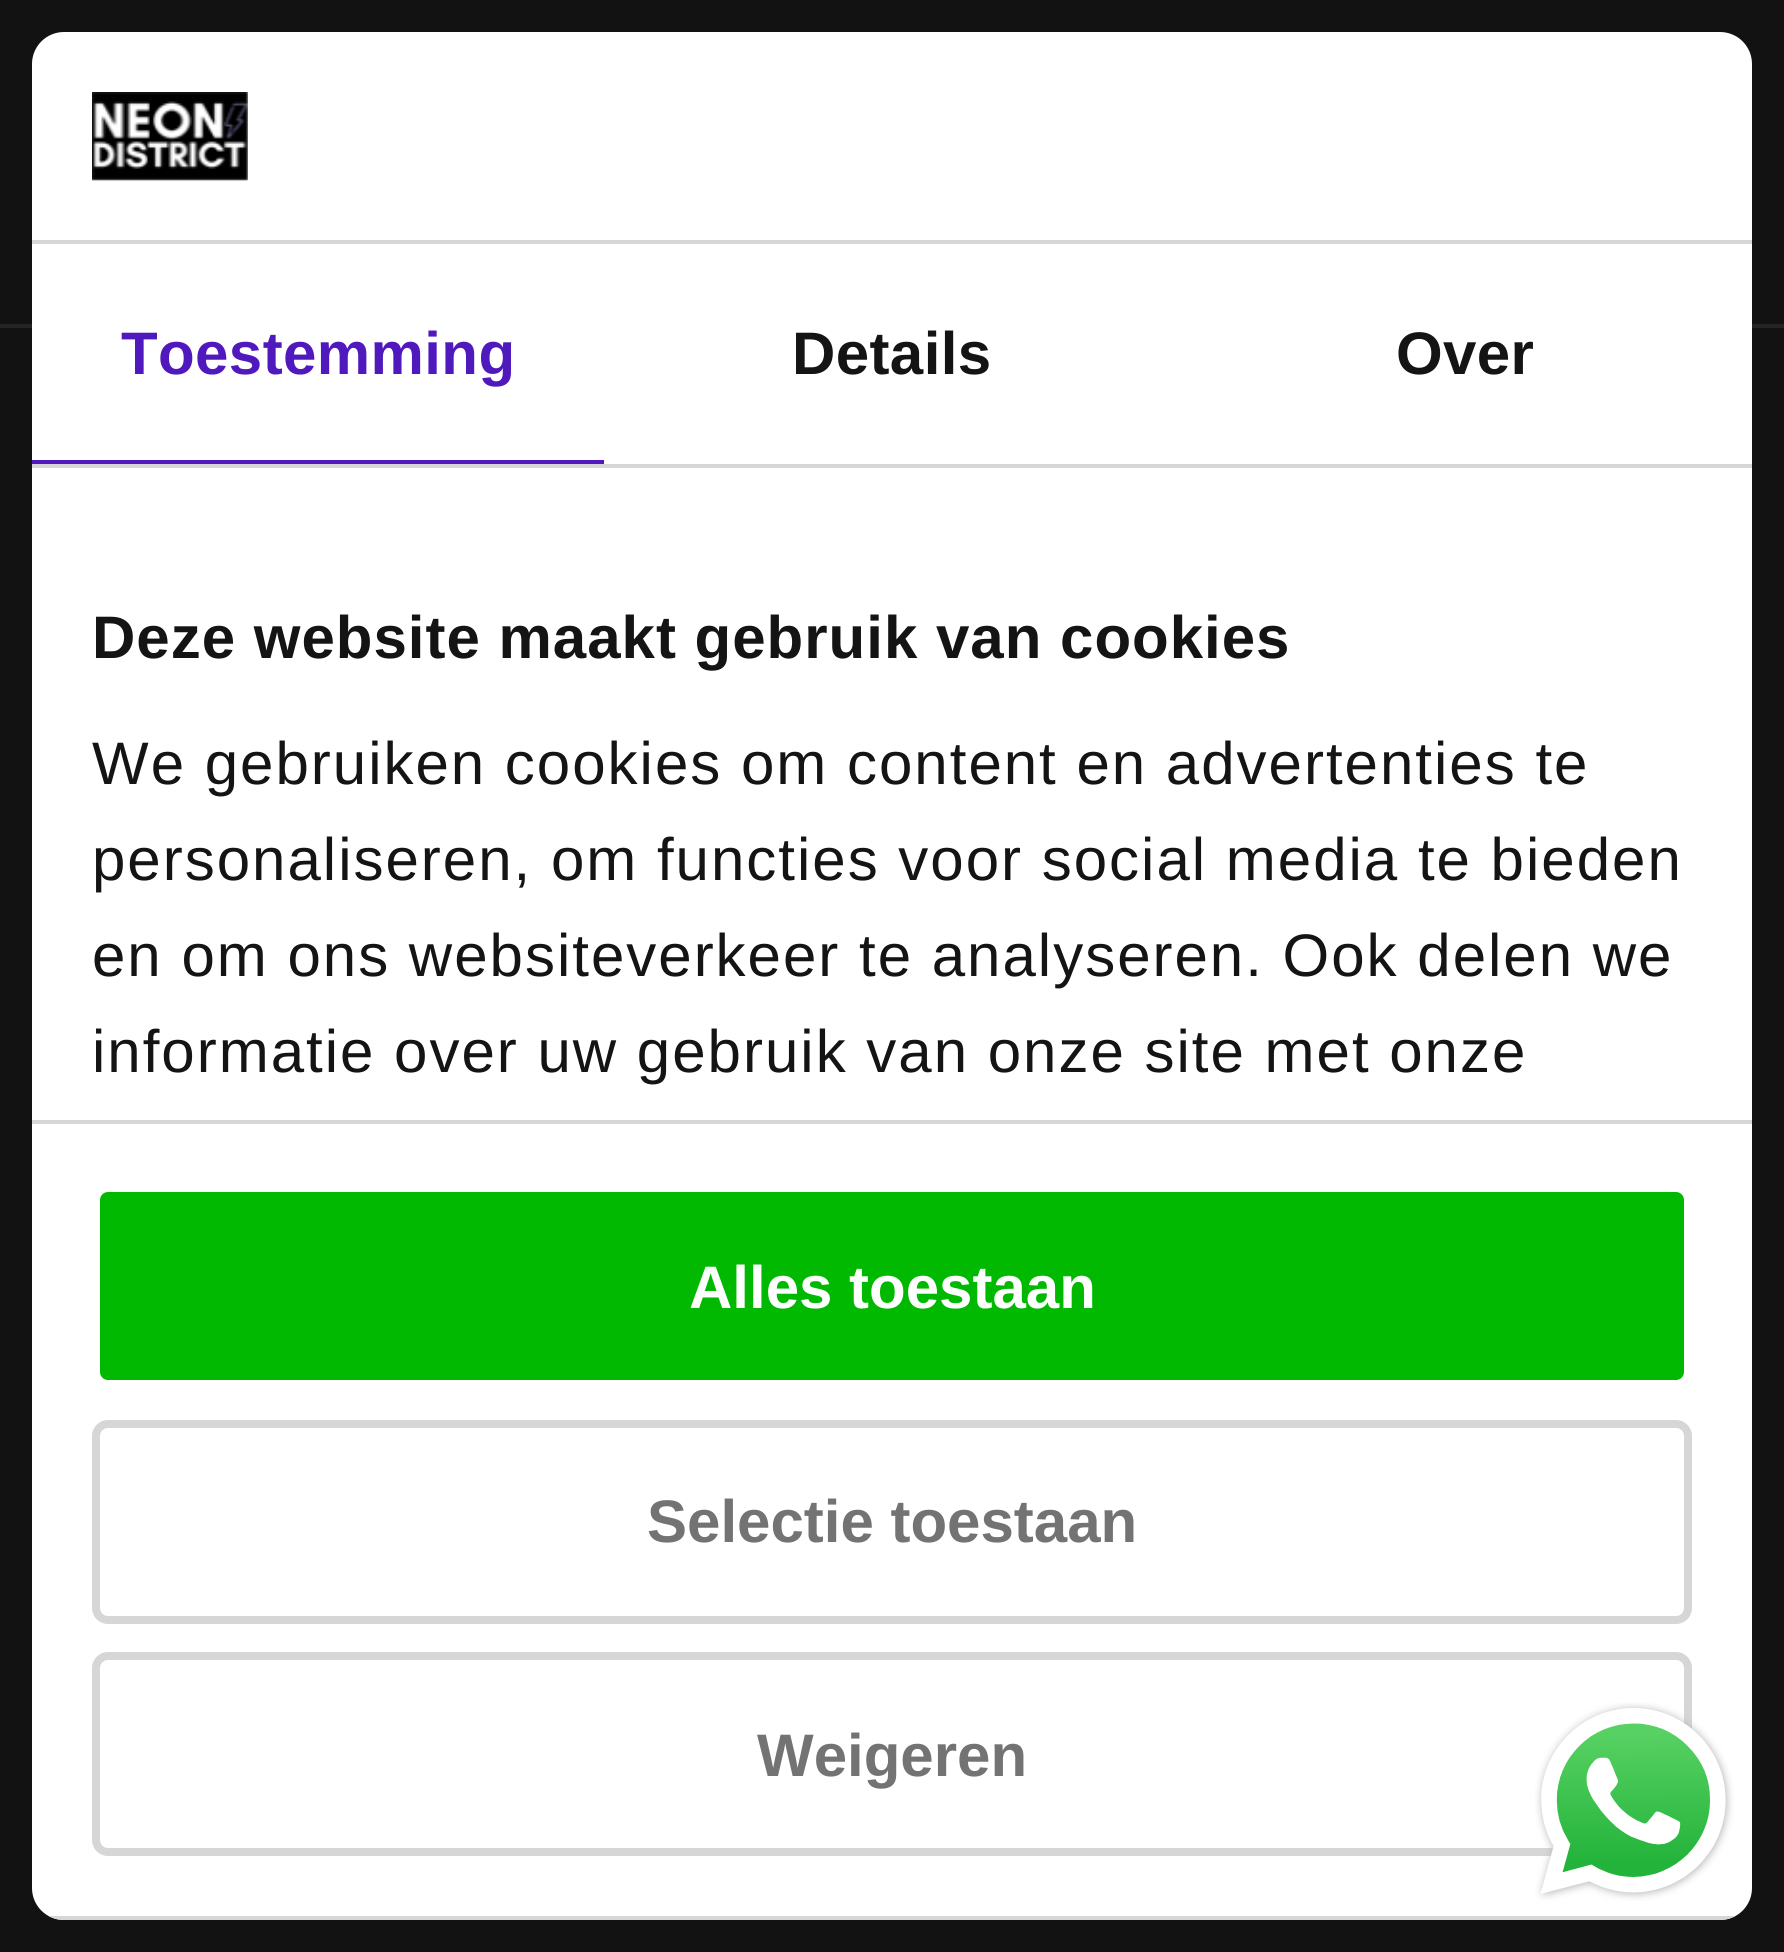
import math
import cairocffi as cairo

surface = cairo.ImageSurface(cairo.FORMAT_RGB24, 1784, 1952)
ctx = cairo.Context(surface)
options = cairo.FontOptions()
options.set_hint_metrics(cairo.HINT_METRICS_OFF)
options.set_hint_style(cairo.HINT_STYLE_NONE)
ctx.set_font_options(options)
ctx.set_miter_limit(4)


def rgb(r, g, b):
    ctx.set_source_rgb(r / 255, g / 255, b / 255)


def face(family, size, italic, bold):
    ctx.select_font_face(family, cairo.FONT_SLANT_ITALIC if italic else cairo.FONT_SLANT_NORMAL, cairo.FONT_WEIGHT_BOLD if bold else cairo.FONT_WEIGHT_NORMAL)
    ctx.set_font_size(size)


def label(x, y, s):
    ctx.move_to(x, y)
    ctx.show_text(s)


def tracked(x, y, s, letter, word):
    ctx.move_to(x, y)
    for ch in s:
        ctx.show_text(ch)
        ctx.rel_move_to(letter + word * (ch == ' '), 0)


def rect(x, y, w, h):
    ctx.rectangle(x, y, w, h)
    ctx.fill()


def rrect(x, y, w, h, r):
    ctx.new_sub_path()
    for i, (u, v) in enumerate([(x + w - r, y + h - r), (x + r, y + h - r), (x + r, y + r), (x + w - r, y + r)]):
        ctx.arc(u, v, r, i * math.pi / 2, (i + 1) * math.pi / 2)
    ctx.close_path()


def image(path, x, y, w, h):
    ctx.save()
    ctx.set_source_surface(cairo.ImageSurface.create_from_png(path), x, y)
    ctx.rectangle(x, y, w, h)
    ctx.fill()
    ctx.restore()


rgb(18, 18, 18)
ctx.paint()
rgb(37, 37, 37)
rect(0, 324, 1784, 4)
rgb(255, 255, 255)
rrect(32, 32, 1720, 1888, 32)
ctx.fill()
rgb(214, 214, 214)
rect(32, 240, 1720, 4)
image('image0.png', 92, 92, 156, 89)
rect(32, 464, 1720, 4)
rgb(80, 25, 189)
rect(32, 460, 572, 4)
face('Liberation Sans', 60, 0, 1)
tracked(121, 374, 'Toestemming', 0.4, 0)
rgb(20, 20, 20)
tracked(792, 374, 'Details', 0.4, 0)
tracked(1396, 374, 'Over', 0.4, 0)
rgb(214, 214, 214)
rect(32, 1120, 1720, 4)
rgb(20, 20, 20)
tracked(92, 658, 'Deze website maakt gebruik van cookies', 1, 0)
face('Liberation Sans', 60, 0, 0)
tracked(92, 784, 'We gebruiken cookies om content en advertenties te', 2, 0)
tracked(92, 880, 'personaliseren, om functies voor social media te bieden', 2, 0)
tracked(92, 976, 'en om ons websiteverkeer te analyseren. Ook delen we', 2, 0)
tracked(92, 1072, 'informatie over uw gebruik van onze site met onze', 2, 0)
ctx.save()
rrect(32, 32, 1720, 1888, 32)
ctx.clip()
rgb(214, 214, 214)
rect(48, 1916, 1688, 4)
ctx.restore()
rgb(0, 185, 0)
rrect(96, 1188, 1592, 196, 12)
ctx.fill_preserve()
rgb(255, 255, 255)
ctx.set_line_width(8)
ctx.stroke()
face('Liberation Sans', 60, 0, 1)
label(689, 1308, 'Alles toestaan')
rrect(96, 1424, 1592, 196, 12)
rgb(214, 214, 214)
ctx.stroke()
rgb(115, 115, 115)
label(647, 1542, 'Selectie toestaan')
rrect(96, 1656, 1592, 196, 12)
rgb(214, 214, 214)
ctx.stroke()
rgb(115, 115, 115)
label(757, 1776, 'Weigeren')
image('image1.png', 1535, 1702, 199, 199)
surface.write_to_png('render.png')
